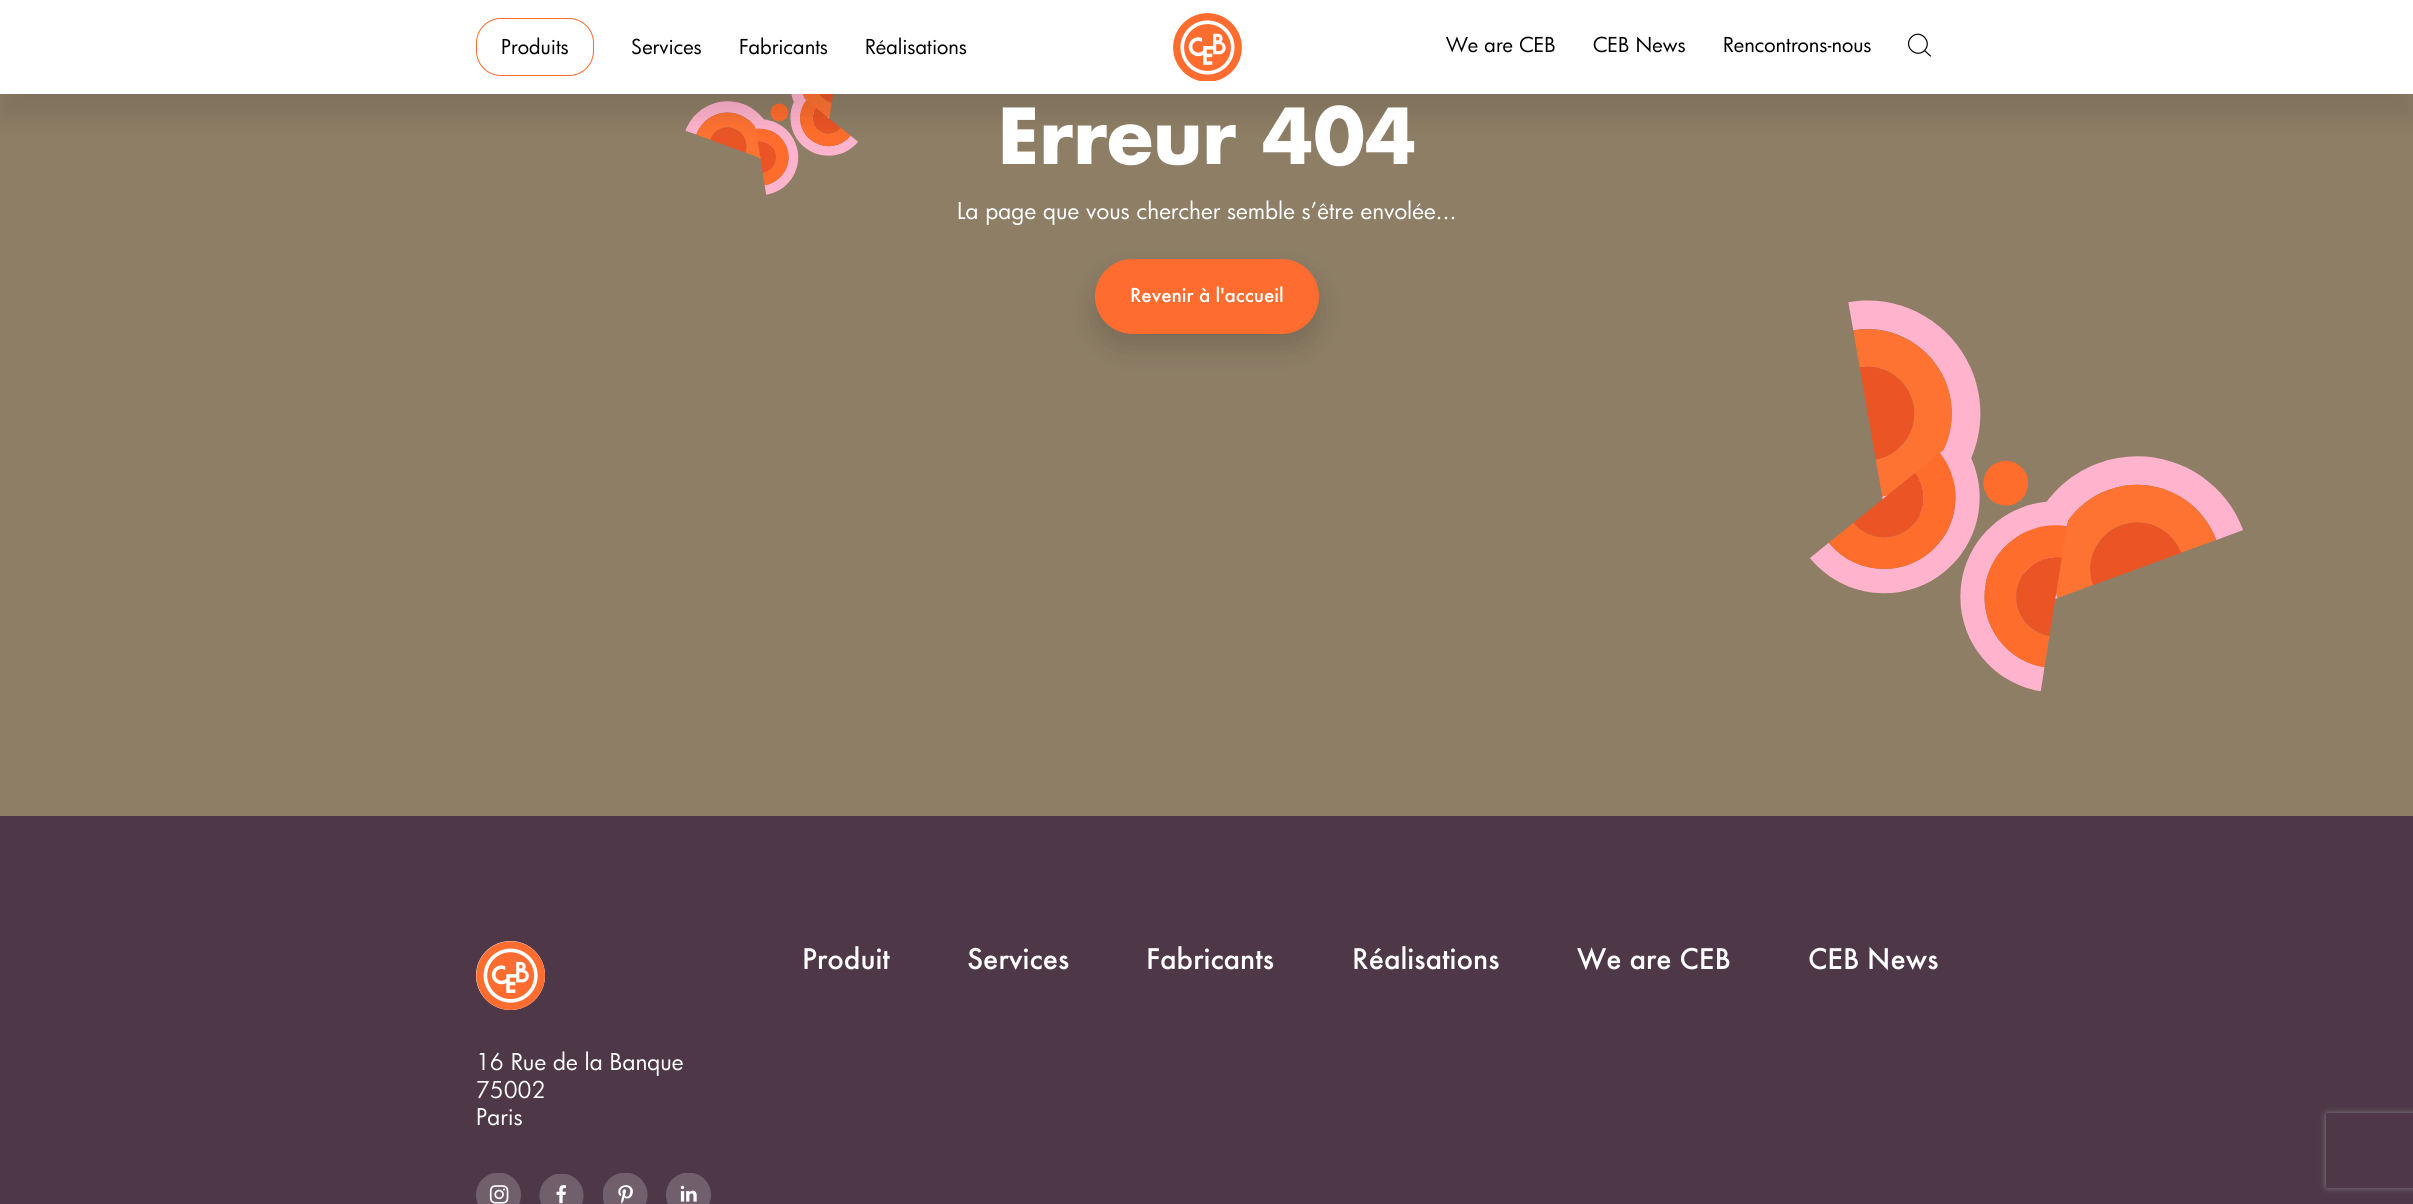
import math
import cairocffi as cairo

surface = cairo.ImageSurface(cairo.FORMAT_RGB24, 2413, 1204)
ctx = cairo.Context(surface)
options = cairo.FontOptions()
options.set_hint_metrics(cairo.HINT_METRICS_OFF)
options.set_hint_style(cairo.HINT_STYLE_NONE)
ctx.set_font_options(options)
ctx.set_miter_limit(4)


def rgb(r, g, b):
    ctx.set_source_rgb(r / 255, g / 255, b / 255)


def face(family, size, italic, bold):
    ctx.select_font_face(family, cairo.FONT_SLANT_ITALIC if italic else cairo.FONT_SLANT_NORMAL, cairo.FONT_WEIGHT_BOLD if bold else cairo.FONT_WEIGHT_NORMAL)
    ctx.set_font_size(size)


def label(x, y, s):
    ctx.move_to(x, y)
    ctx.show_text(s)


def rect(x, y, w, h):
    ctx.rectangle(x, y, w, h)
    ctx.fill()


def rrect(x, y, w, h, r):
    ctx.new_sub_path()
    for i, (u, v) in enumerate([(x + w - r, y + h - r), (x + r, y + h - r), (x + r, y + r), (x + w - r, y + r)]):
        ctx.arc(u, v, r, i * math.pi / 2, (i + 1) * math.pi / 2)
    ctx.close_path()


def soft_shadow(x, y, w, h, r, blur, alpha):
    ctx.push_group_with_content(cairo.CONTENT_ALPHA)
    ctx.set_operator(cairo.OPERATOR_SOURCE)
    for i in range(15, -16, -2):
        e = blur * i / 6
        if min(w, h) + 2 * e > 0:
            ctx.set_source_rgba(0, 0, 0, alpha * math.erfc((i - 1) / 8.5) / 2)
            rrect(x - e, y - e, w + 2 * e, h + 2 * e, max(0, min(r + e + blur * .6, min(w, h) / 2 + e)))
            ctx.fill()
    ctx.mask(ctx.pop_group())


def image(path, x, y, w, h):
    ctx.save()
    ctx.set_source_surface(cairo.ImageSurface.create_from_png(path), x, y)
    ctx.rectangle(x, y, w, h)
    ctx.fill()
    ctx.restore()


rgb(142, 126, 102)
ctx.paint()
image('image1.png', 685, 94, 173, 101)
rgb(0, 0, 0)
soft_shadow(0, 25, 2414, 94, 0, 12.5, 0.1)
rgb(255, 255, 255)
rect(0, 0, 2413, 94)
rrect(476.5, 18.5, 117, 57, 24.5)
rgb(255, 108, 47)
ctx.set_line_width(1)
ctx.stroke()
face('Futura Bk', 20, 0, 0)
rgb(0, 0, 0)
label(501, 54, 'Produits')
label(631, 54, 'Services')
label(739, 54, 'Fabricants')
label(865, 54, 'Réalisations')
image('image0.png', 1173, 13, 69, 68)
label(1446, 52, 'We are CEB')
label(1593, 52, 'CEB News')
label(1723, 52, 'Rencontrons-nous')
ctx.new_path()
ctx.move_to(1925, 51)
ctx.line_to(1930.5, 56)
ctx.set_line_width(1.2)
ctx.set_line_cap(cairo.LINE_CAP_ROUND)
ctx.stroke()
ctx.new_path()
ctx.move_to(1911.5, 37)
ctx.curve_to(1920, 28.5, 1933, 41.5, 1924.5, 50.5)
ctx.curve_to(1916, 59, 1902.5, 46, 1911.5, 37)
ctx.close_path()
ctx.set_line_cap(cairo.LINE_CAP_BUTT)
ctx.stroke()
face('Futura', 75, 0, 1)
rgb(255, 255, 255)
label(998, 164, 'Erreur 404')
face('Futura Bk', 22.5, 0, 0)
label(957, 219, 'La page que vous chercher semble s’être envolée...')
rgb(0, 0, 0)
soft_shadow(1095, 273, 224, 75, 37.5, 15, 0.15)
rgb(255, 108, 47)
rrect(1095, 259, 224, 75, 37.5)
ctx.fill()
face('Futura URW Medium', 21.25, 0, 0)
rgb(255, 255, 255)
label(1130, 302, 'Revenir à l\'accueil')
image('image2.png', 1810, 300, 433, 392)
rgb(78, 56, 71)
rect(0, 816, 2413, 388)
face('Futura URW Medium', 31.25, 0, 0)
rgb(255, 255, 255)
label(802, 969, 'Produit')
label(967, 969, 'Services')
label(1146, 969, 'Fabricants')
label(1352, 969, 'Réalisations')
label(1577, 969, 'We are CEB')
label(1808, 969, 'CEB News')
image('image3.png', 476, 941, 69, 69)
face('Futura Bk', 22.5, 0, 0)
label(476, 1070, '16 Rue de la Banque')
label(476, 1098, '75002')
label(476, 1125, 'Paris')
image('image4.png', 476, 1173, 45, 31)
image('image5.png', 539, 1174, 45, 30)
image('image6.png', 603, 1173, 45, 31)
image('image7.png', 666, 1173, 45, 31)
ctx.save()
ctx.set_fill_rule(cairo.FILL_RULE_EVEN_ODD)
ctx.new_path()
ctx.move_to(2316, 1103)
ctx.line_to(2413, 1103)
ctx.line_to(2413, 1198)
ctx.line_to(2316, 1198)
ctx.close_path()
ctx.move_to(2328.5, 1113)
ctx.line_to(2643.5, 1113)
ctx.curve_to(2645, 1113, 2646, 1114, 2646, 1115.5)
ctx.line_to(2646, 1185.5)
ctx.curve_to(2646, 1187, 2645, 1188, 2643.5, 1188)
ctx.line_to(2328.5, 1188)
ctx.curve_to(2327, 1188, 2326, 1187, 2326, 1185.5)
ctx.line_to(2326, 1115.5)
ctx.curve_to(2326, 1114, 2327, 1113, 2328.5, 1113)
ctx.close_path()
ctx.clip()
rgb(128, 128, 128)
soft_shadow(2326, 1113, 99, 75, 2.5, 3, 1)
ctx.restore()
surface.write_to_png('render.png')
